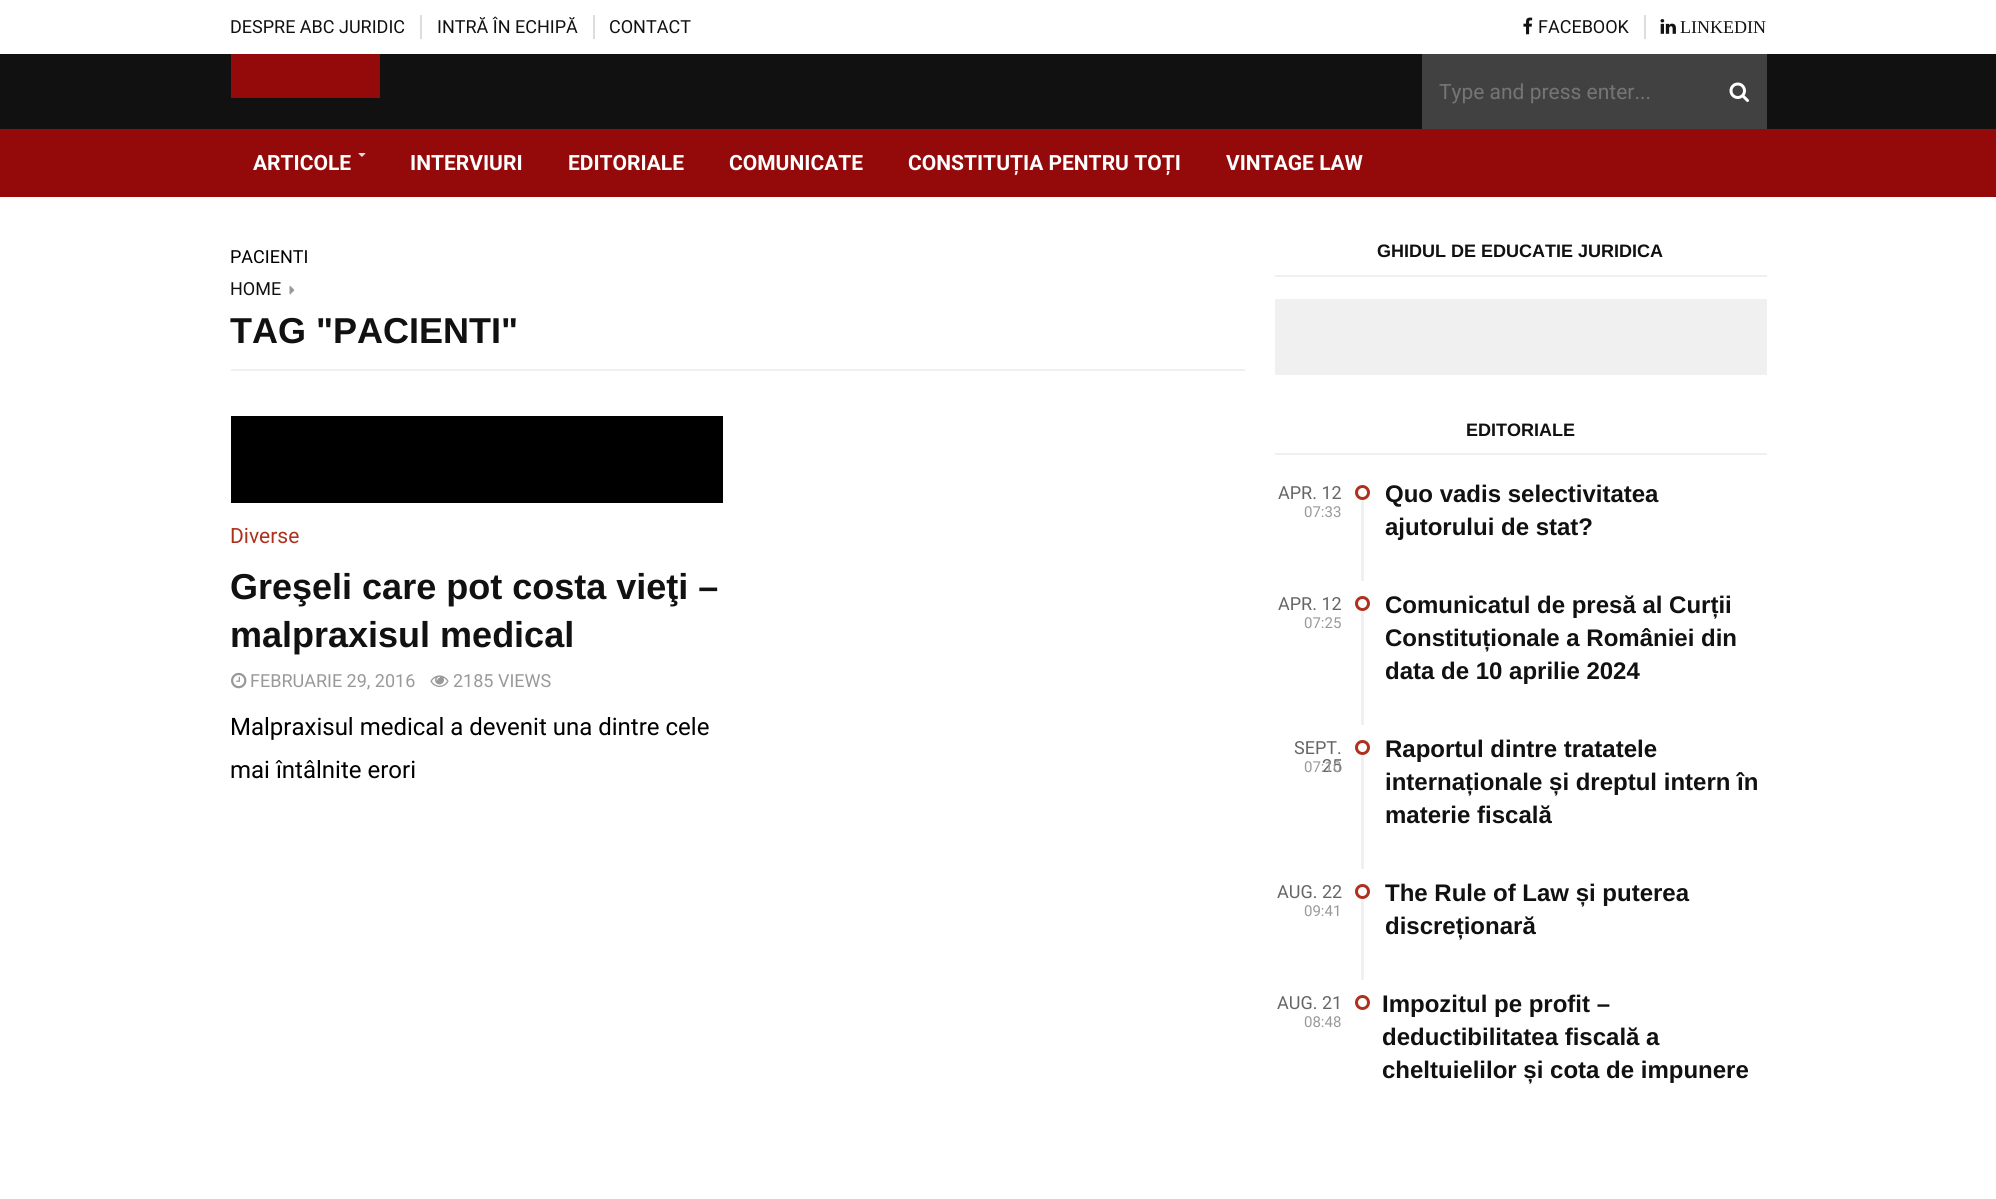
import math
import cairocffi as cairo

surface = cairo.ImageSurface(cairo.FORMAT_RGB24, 1996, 1199)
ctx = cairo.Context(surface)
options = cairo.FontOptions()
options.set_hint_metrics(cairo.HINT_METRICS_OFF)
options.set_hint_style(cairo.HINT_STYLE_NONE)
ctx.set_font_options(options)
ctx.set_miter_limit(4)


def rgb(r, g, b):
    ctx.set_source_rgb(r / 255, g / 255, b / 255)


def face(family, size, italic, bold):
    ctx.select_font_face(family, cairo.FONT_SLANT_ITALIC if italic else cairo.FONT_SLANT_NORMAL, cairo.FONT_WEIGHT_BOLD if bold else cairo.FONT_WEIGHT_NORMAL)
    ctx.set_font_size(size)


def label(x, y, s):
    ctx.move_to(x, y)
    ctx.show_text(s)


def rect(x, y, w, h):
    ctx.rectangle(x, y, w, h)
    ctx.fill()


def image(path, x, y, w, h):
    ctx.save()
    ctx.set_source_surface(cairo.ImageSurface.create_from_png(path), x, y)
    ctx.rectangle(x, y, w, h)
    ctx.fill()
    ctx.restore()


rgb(255, 255, 255)
ctx.paint()
rgb(221, 221, 221)
rect(420, 15, 2, 24)
face('Roboto', 18, 0, 0)
rgb(17, 17, 17)
label(230, 33, 'DESPRE ABC JURIDIC')
rgb(221, 221, 221)
rect(593, 15, 2, 24)
rgb(17, 17, 17)
label(437, 33, 'INTRĂ ÎN ECHIPĂ')
label(609, 33, 'CONTACT')
rgb(221, 221, 221)
rect(1644, 15, 2, 24)
image('image0.png', 1523, 17, 10, 18)
rgb(17, 17, 17)
label(1538, 33, 'FACEBOOK')
image('image1.png', 1660, 19, 16, 15)
face('Liberation Serif', 18, 0, 0)
label(1680, 33, 'LINKEDIN')
rect(0, 54, 1996, 75)
rgb(148, 10, 10)
rect(231, 54, 149, 44)
rgb(65, 65, 65)
rect(1422, 54, 345, 75)
face('Roboto', 21, 0, 0)
rgb(117, 117, 117)
label(1439, 99, 'Type and press enter...')
image('image2.png', 1729, 82, 20, 20)
rgb(148, 10, 10)
rect(0, 129, 1996, 68)
face('Roboto', 21, 0, 1)
rgb(255, 255, 255)
label(253, 170, 'ARTICOLE')
image('image3.png', 358, 153, 8, 4)
label(410, 170, 'INTERVIURI')
label(568, 170, 'EDITORIALE')
label(729, 170, 'COMUNICATE')
label(908, 170, 'CONSTITUȚIA PENTRU TOȚI')
label(1226, 170, 'VINTAGE LAW')
face('Roboto', 18, 0, 0)
rgb(0, 0, 0)
label(230, 263, 'PACIENTI')
rgb(17, 17, 17)
label(230, 295, 'HOME')
image('image4.png', 289, 286, 6, 9)
rgb(240, 240, 240)
rect(231, 369, 1014, 2)
face('Arimo', 36, 0, 1)
rgb(17, 17, 17)
label(230, 343, 'TAG "PACIENTI"')
rgb(0, 0, 0)
rect(231, 416, 492, 87)
face('Roboto', 21, 0, 0)
rgb(173, 49, 29)
label(230, 543, 'Diverse')
face('Arimo', 36, 0, 1)
rgb(17, 17, 17)
label(230, 599, 'Greşeli care pot costa vieţi –')
label(230, 647, 'malpraxisul medical')
image('image5.png', 231, 672, 16, 17)
face('Roboto', 18, 0, 0)
rgb(153, 153, 153)
label(250, 687, 'FEBRUARIE 29, 2016')
image('image6.png', 430, 675, 19, 12)
label(453, 687, '2185 VIEWS')
face('Roboto', 24, 0, 0)
rgb(0, 0, 0)
label(230, 735, 'Malpraxisul medical a devenit una dintre cele')
label(230, 778, 'mai întâlnite erori')
rgb(240, 240, 240)
rect(1275, 275, 492, 2)
face('Arimo', 18, 0, 1)
rgb(17, 17, 17)
label(1377, 257, 'GHIDUL DE EDUCATIE JURIDICA')
rgb(240, 240, 240)
rect(1275, 299, 492, 76)
rect(1275, 453, 492, 2)
rgb(17, 17, 17)
label(1466, 436, 'EDITORIALE')
face('Roboto', 18, 0, 0)
rgb(102, 102, 102)
label(1278, 499, 'APR. 12')
rgb(240, 240, 240)
rect(1361, 500, 3, 81)
ctx.new_path()
ctx.arc(1362.5, 492.5, 6, 0, 2 * math.pi)
rgb(173, 49, 29)
ctx.set_line_width(3)
ctx.stroke()
face('Arimo', 24, 0, 1)
rgb(17, 17, 17)
label(1385, 502, 'Quo vadis selectivitatea')
label(1385, 535, 'ajutorului de stat?')
face('Roboto', 15, 0, 0)
rgb(153, 153, 153)
label(1304, 517, '07:33')
face('Roboto', 18, 0, 0)
rgb(102, 102, 102)
label(1278, 610, 'APR. 12')
rgb(240, 240, 240)
rect(1361, 611, 3, 114)
ctx.new_path()
ctx.arc(1362.5, 603.5, 6, 0, 2 * math.pi)
rgb(173, 49, 29)
ctx.stroke()
face('Arimo', 24, 0, 1)
rgb(17, 17, 17)
label(1385, 613, 'Comunicatul de presă al Curții')
label(1385, 646, 'Constituționale a României din')
label(1385, 679, 'data de 10 aprilie 2024')
face('Roboto', 15, 0, 0)
rgb(153, 153, 153)
label(1304, 628, '07:25')
face('Roboto', 18, 0, 0)
rgb(102, 102, 102)
label(1294, 754, 'SEPT.')
label(1322, 772, '25')
rgb(240, 240, 240)
rect(1361, 755, 3, 114)
ctx.new_path()
ctx.arc(1362.5, 747.5, 6, 0, 2 * math.pi)
rgb(173, 49, 29)
ctx.stroke()
face('Arimo', 24, 0, 1)
rgb(17, 17, 17)
label(1385, 757, 'Raportul dintre tratatele')
label(1385, 790, 'internaționale și dreptul intern în')
label(1385, 823, 'materie fiscală')
face('Roboto', 15, 0, 0)
rgb(153, 153, 153)
label(1304, 772, '07:10')
face('Roboto', 18, 0, 0)
rgb(102, 102, 102)
label(1277, 898, 'AUG. 22')
rgb(240, 240, 240)
rect(1361, 899, 3, 81)
ctx.new_path()
ctx.arc(1362.5, 891.5, 6, 0, 2 * math.pi)
rgb(173, 49, 29)
ctx.stroke()
face('Arimo', 24, 0, 1)
rgb(17, 17, 17)
label(1385, 901, 'The Rule of Law și puterea')
label(1385, 934, 'discreționară')
face('Roboto', 15, 0, 0)
rgb(153, 153, 153)
label(1304, 916, '09:41')
face('Roboto', 18, 0, 0)
rgb(102, 102, 102)
label(1277, 1009, 'AUG. 21')
ctx.new_path()
ctx.arc(1362.5, 1002.5, 6, 0, 2 * math.pi)
rgb(173, 49, 29)
ctx.stroke()
face('Arimo', 24, 0, 1)
rgb(17, 17, 17)
label(1382, 1012, 'Impozitul pe profit –')
label(1382, 1045, 'deductibilitatea fiscală a')
label(1382, 1078, 'cheltuielilor și cota de impunere')
face('Roboto', 15, 0, 0)
rgb(153, 153, 153)
label(1304, 1027, '08:48')
surface.write_to_png('render.png')
